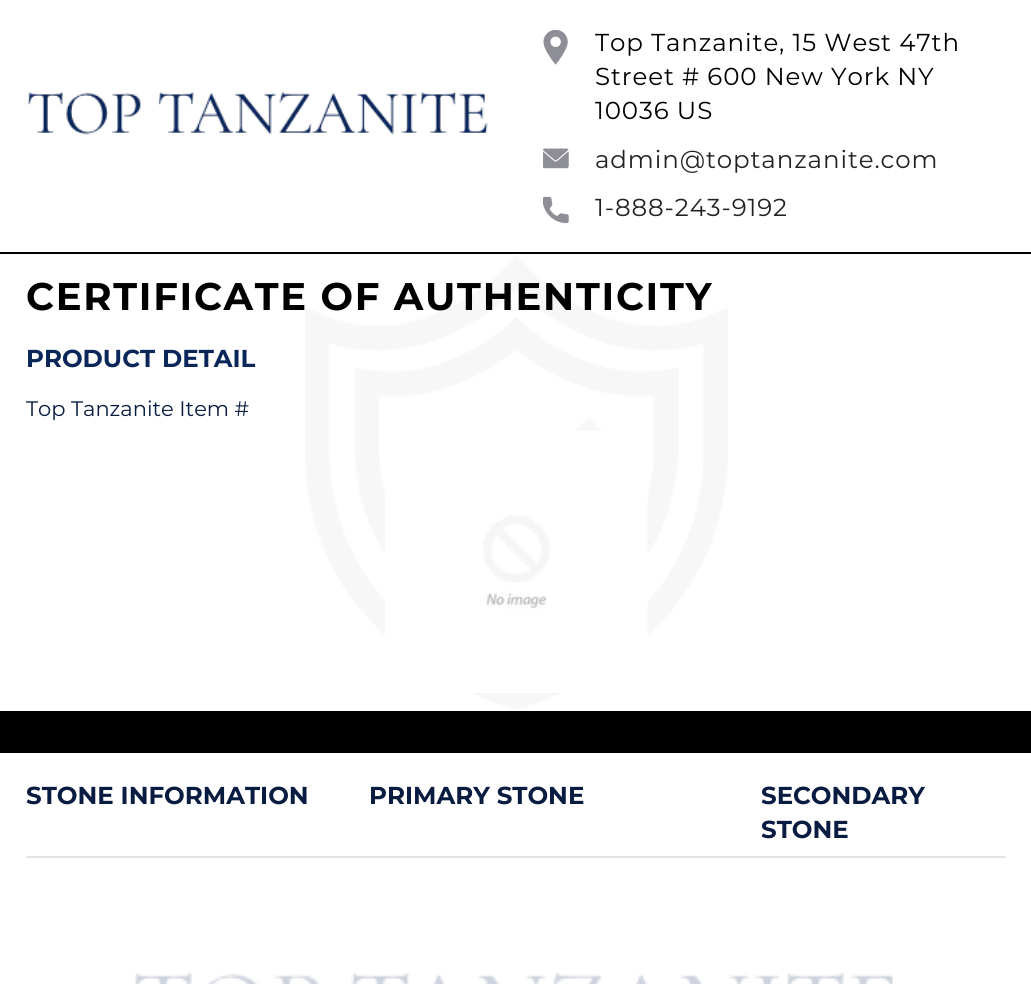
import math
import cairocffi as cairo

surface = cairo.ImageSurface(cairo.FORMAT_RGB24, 1031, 984)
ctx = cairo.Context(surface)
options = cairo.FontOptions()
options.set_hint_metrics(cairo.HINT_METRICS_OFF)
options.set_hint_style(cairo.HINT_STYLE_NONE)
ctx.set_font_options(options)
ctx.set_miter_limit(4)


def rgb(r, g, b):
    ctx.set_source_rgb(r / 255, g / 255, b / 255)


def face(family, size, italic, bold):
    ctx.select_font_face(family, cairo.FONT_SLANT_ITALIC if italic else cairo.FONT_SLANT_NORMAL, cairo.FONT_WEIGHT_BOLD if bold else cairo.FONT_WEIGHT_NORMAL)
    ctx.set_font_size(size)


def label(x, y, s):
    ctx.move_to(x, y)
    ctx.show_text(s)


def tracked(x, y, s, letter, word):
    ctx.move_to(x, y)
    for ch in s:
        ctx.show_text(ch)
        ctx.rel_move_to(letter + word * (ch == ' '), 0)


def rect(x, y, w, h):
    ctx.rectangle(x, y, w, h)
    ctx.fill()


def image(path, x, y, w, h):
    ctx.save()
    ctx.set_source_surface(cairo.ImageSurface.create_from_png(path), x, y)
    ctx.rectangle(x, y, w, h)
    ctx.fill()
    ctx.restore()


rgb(255, 255, 255)
ctx.paint()
rgb(0, 0, 0)
rect(0, 252, 1031, 2)
image('image0.png', 27, 91, 461, 44)
image('image1.png', 543, 30, 25, 35)
face('Montserrat', 24.5, 0, 0)
tracked(595, 51, 'Top Tanzanite, 15 West 47th', 0.9, 0)
tracked(595, 85, 'Street # 600 New York NY', 0.9, 0)
tracked(595, 119, '10036 US', 0.9, 0)
image('image2.png', 543, 148, 26, 21)
rgb(34, 34, 34)
tracked(595, 168, 'admin@toptanzanite.com', 0.9, 0)
image('image3.png', 543, 196, 26, 28)
tracked(595, 216, '1-888-243-9192', 0.9, 0)
image('image4.png', 305, 255, 423, 454)
face('Montserrat', 38.5, 0, 1)
rgb(0, 0, 0)
tracked(26, 310, 'CERTIFICATE OF AUTHENTICITY', 1.75, 0)
face('Montserrat', 24.5, 0, 1)
rgb(11, 38, 89)
label(26, 367, 'PRODUCT DETAIL')
face('Montserrat', 21, 0, 0)
rgb(8, 27, 64)
label(26, 416, 'Top Tanzanite Item #')
image('image5.png', 385, 430, 263, 263)
rgb(0, 0, 0)
rect(0, 711, 1031, 42)
rgb(227, 227, 227)
rect(26, 856, 980, 2)
face('Montserrat', 24.5, 0, 1)
rgb(8, 27, 64)
label(26, 804, 'STONE INFORMATION')
label(369, 804, 'PRIMARY STONE')
label(761, 804, 'SECONDARY')
label(761, 838, 'STONE')
image('image6.png', 135, 972, 758, 12)
surface.write_to_png('render.png')
